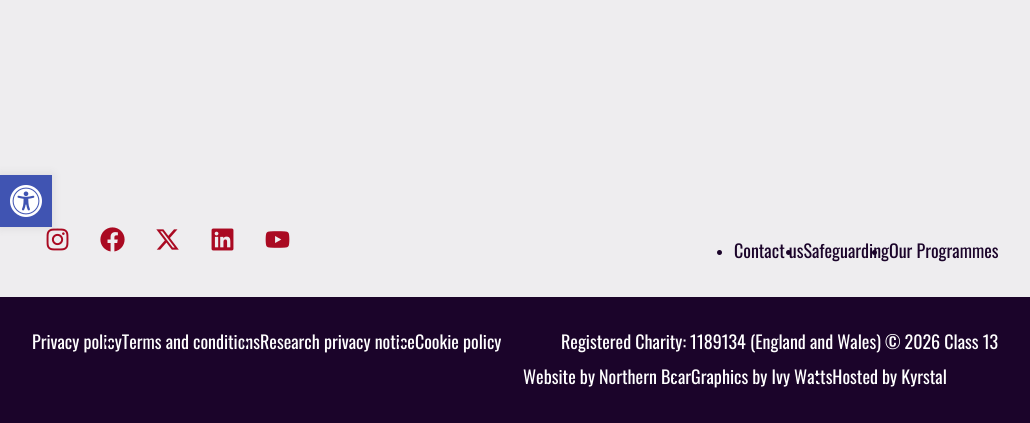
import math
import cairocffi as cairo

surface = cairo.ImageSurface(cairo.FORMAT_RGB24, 1030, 423)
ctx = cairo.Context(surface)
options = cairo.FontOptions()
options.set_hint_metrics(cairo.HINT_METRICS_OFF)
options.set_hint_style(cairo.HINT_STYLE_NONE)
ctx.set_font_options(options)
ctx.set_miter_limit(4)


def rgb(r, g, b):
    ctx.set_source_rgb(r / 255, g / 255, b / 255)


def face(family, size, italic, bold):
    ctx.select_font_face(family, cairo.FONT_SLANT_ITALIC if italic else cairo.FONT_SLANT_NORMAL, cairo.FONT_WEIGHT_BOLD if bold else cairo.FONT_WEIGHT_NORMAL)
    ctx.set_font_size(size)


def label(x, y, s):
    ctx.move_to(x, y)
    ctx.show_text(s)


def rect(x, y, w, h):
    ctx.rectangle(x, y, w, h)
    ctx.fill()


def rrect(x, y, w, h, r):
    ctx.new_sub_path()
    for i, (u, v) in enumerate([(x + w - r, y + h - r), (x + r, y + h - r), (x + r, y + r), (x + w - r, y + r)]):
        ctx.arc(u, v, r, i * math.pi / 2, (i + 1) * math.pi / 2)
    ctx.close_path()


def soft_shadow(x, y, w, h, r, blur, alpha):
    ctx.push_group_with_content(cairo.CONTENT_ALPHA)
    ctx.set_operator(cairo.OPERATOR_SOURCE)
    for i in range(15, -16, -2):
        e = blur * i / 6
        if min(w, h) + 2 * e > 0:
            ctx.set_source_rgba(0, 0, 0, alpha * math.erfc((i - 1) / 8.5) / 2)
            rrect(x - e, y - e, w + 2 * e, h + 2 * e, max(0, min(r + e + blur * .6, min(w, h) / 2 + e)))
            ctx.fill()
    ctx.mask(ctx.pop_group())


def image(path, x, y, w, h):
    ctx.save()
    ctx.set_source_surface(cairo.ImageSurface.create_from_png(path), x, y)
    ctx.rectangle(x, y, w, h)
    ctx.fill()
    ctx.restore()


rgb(238, 237, 239)
ctx.paint()
image('image1.png', 46, 228, 23, 23)
rgb(0, 0, 0)
soft_shadow(0, 175, 52, 52, 0, 5, 0.1)
rgb(64, 84, 178)
rect(0, 175, 52, 52)
image('image0.png', 10, 185, 32, 32)
image('image2.png', 100, 227, 25, 25)
image('image3.png', 156, 229, 23, 21)
image('image4.png', 211, 228, 23, 23)
image('image5.png', 265, 231, 25, 17)
rgb(27, 4, 42)
ctx.arc(719.5, 252.5, 2.5, 0, 2 * math.pi)
ctx.fill()
face('Oswald', 18, 0, 0)
label(734, 258, 'Contact usSafeguardingOur Programmes')
ctx.new_path()
ctx.arc(788.5, 252.5, 2.5, 0, 2 * math.pi)
ctx.fill()
ctx.arc(874.5, 252.5, 2.5, 0, 2 * math.pi)
ctx.fill()
rect(0, 297, 1030, 126)
rgb(255, 255, 255)
label(32, 349, 'Privacy policyTerms and conditionsResearch privacy noticeCookie policy')
rgb(27, 4, 42)
ctx.new_path()
ctx.arc(107.5, 343.5, 2.5, 0, 2 * math.pi)
ctx.fill()
ctx.arc(245.5, 343.5, 2.5, 0, 2 * math.pi)
ctx.fill()
ctx.arc(400.5, 343.5, 2.5, 0, 2 * math.pi)
ctx.fill()
rgb(255, 255, 255)
label(561, 349, 'Registered Charity: 1189134 (England and Wales) © 2026 Class 13')
label(523, 384, 'Website by Northern BearGraphics by Ivy WattsHosted by Kyrstal')
rgb(27, 4, 42)
ctx.new_path()
ctx.arc(676.5, 378.5, 2.5, 0, 2 * math.pi)
ctx.fill()
ctx.arc(817.5, 378.5, 2.5, 0, 2 * math.pi)
ctx.fill()
surface.write_to_png('render.png')
